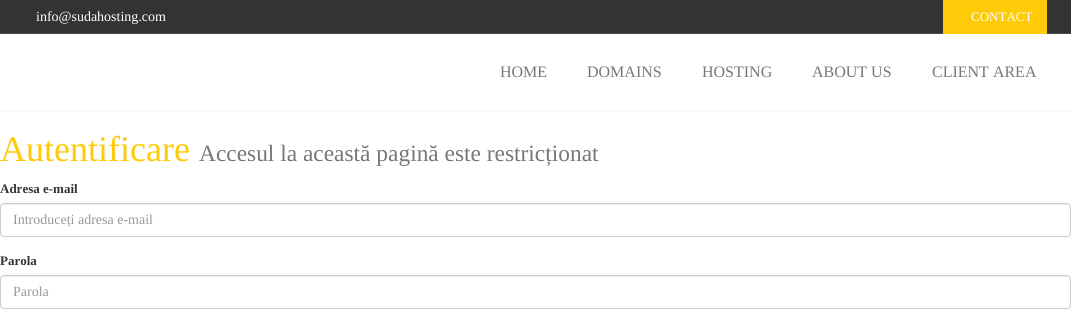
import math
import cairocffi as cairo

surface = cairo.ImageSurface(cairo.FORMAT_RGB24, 1071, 323)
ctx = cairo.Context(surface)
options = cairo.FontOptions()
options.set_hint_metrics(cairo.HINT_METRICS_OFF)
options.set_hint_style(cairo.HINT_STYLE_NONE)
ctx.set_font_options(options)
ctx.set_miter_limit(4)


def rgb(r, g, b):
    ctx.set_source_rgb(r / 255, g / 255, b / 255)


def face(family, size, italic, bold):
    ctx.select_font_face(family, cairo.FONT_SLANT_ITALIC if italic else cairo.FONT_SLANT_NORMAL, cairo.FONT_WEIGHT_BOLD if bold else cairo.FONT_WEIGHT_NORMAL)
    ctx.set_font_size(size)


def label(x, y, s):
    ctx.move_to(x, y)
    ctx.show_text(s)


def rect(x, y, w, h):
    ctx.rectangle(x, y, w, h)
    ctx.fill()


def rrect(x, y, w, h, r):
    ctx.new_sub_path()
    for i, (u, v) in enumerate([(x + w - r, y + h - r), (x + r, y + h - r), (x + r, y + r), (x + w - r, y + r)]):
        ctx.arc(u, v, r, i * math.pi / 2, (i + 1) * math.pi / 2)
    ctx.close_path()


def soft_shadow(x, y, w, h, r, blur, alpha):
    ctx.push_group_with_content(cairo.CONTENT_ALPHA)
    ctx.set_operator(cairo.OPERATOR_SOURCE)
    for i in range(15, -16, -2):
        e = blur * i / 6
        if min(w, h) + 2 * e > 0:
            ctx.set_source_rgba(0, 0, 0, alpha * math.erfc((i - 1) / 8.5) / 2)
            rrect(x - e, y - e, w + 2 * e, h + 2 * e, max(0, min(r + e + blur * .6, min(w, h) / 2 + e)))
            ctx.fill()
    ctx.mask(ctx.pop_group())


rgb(255, 255, 255)
ctx.paint()
rgb(51, 51, 51)
rect(0, 0, 1071, 34)
face('Liberation Serif', 14, 0, 0)
rgb(255, 255, 255)
label(36, 21, 'info@sudahosting.com')
ctx.save()
ctx.set_fill_rule(cairo.FILL_RULE_EVEN_ODD)
ctx.new_path()
ctx.move_to(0, 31)
ctx.line_to(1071, 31)
ctx.line_to(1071, 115)
ctx.line_to(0, 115)
ctx.close_path()
ctx.move_to(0, 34)
ctx.line_to(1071, 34)
ctx.line_to(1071, 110)
ctx.line_to(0, 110)
ctx.close_path()
ctx.clip()
rgb(241, 241, 241)
soft_shadow(0, 35, 1071, 76, 0, 1, 1)
ctx.restore()
rgb(255, 203, 8)
rect(943, 0, 104, 34)
face('Liberation Serif', 13, 0, 0)
rgb(255, 255, 255)
label(971, 21, 'CONTACT')
face('Liberation Serif', 16, 0, 0)
rgb(119, 119, 119)
label(500, 77, 'HOME')
label(587, 77, 'DOMAINS')
label(702, 77, 'HOSTING')
label(812, 77, 'ABOUT US')
label(932, 77, 'CLIENT AREA')
face('Liberation Serif', 36, 0, 0)
rgb(255, 203, 8)
label(0, 161, 'Autentificare')
face('Liberation Serif', 23.4, 0, 0)
rgb(119, 119, 119)
label(199, 161, 'Accesul la această pagină este restricționat')
face('Liberation Serif', 13, 0, 1)
rgb(51, 51, 51)
label(0, 193, 'Adresa e-mail')
rgb(236, 236, 236)
ctx.new_path()
ctx.move_to(4, 205)
ctx.line_to(1067, 205)
ctx.curve_to(1069, 205, 1070, 206, 1070, 208)
ctx.curve_to(1070, 206, 1069, 204, 1067, 204)
ctx.line_to(4, 204)
ctx.curve_to(2, 204, 1, 206, 1, 208)
ctx.curve_to(1, 206, 2, 205, 4, 205)
ctx.close_path()
ctx.fill()
rrect(0.5, 203.5, 1070, 33, 3.5)
rgb(204, 204, 204)
ctx.set_line_width(1)
ctx.stroke()
face('Liberation Serif', 14, 0, 0)
rgb(153, 153, 153)
label(13, 224, 'Introduceți adresa e-mail')
face('Liberation Serif', 13, 0, 1)
rgb(51, 51, 51)
label(0, 265, 'Parola')
rgb(236, 236, 236)
ctx.new_path()
ctx.move_to(4, 277)
ctx.line_to(1067, 277)
ctx.curve_to(1069, 277, 1070, 278, 1070, 280)
ctx.curve_to(1070, 278, 1069, 276, 1067, 276)
ctx.line_to(4, 276)
ctx.curve_to(2, 276, 1, 278, 1, 280)
ctx.curve_to(1, 278, 2, 277, 4, 277)
ctx.close_path()
ctx.fill()
rrect(0.5, 275.5, 1070, 33, 3.5)
rgb(204, 204, 204)
ctx.stroke()
face('Liberation Serif', 14, 0, 0)
rgb(153, 153, 153)
label(13, 296, 'Parola')
surface.write_to_png('render.png')
